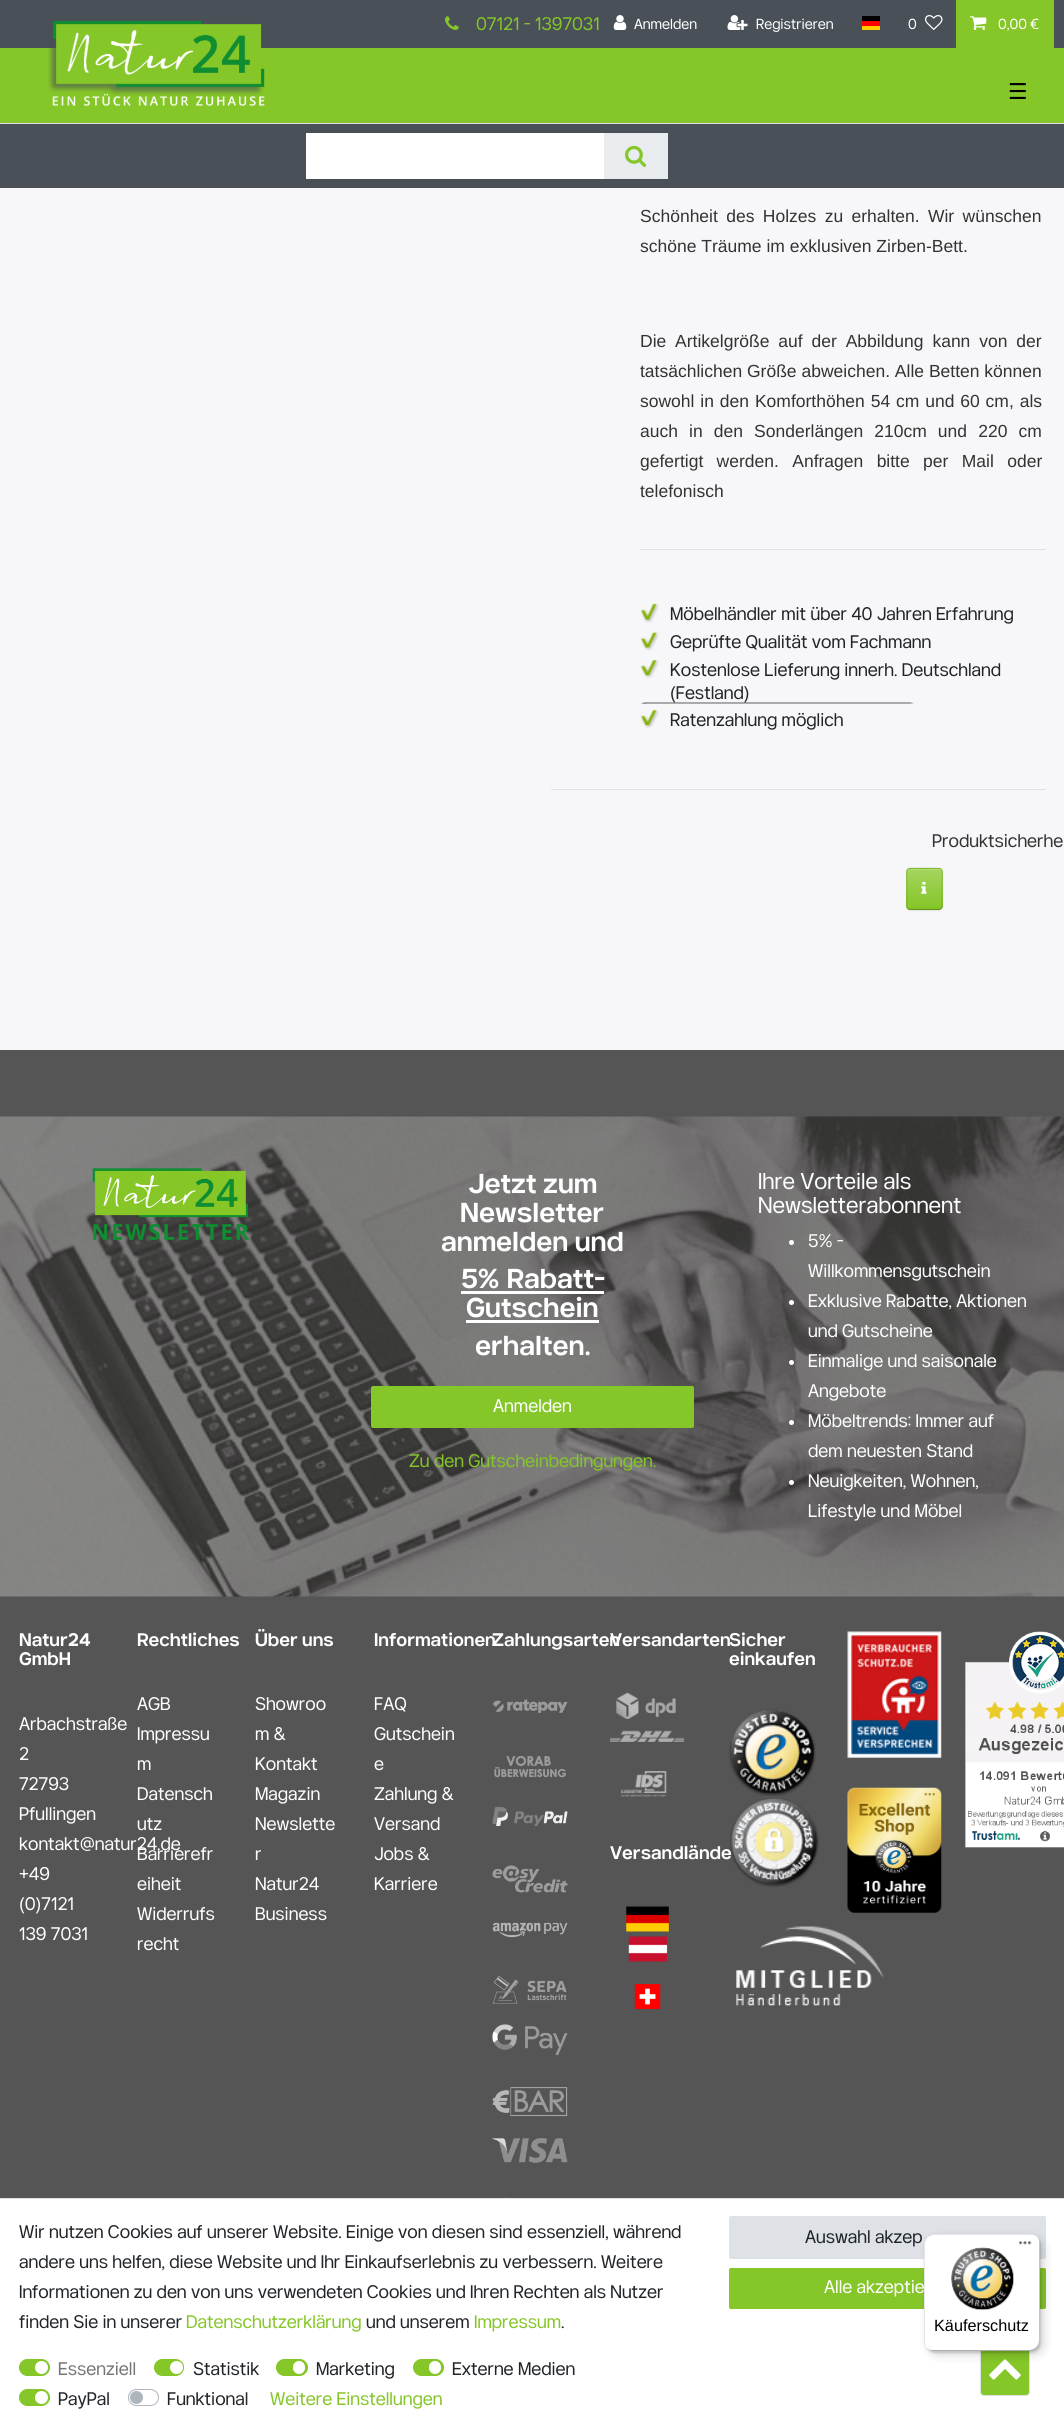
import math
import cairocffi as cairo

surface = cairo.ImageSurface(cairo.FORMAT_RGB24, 1064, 2431)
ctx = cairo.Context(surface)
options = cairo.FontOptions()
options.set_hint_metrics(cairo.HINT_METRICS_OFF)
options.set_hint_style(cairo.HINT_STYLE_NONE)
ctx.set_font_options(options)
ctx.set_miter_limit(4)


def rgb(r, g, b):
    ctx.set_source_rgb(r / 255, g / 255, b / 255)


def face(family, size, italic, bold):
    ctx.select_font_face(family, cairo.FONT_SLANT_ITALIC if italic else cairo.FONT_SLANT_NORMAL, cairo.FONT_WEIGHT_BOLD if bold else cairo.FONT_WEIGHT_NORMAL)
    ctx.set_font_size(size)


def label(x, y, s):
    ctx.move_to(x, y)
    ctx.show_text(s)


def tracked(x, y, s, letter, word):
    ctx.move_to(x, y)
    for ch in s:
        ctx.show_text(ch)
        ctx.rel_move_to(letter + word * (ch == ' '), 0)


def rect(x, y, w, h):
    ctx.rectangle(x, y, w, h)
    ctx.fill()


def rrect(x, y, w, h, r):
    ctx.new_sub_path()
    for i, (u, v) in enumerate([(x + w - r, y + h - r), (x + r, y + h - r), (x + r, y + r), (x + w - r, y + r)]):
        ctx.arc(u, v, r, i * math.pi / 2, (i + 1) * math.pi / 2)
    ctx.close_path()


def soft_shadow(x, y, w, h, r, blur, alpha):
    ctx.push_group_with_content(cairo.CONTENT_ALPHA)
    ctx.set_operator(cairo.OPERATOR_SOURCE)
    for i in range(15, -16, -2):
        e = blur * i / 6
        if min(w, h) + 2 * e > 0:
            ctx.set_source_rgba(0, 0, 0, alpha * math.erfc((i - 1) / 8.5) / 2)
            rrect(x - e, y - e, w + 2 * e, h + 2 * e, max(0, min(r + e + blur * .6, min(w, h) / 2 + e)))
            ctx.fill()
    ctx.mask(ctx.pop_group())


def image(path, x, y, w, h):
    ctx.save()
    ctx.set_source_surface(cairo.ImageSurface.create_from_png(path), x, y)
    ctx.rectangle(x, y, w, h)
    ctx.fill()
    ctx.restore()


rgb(247, 247, 249)
ctx.paint()
rgb(73, 80, 87)
rect(0, 0, 1064, 188)
image('image0.png', 445, 16, 14, 14)
face('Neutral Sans', 17.5, 0, 0)
rgb(133, 198, 40)
label(476, 30, '07121 - 1397031')
image('image1.png', 613, 15, 14, 15)
face('Neutral Sans', 14, 0, 0)
rgb(255, 255, 255)
label(634, 29, 'Anmelden')
image('image2.png', 727, 15, 21, 15)
label(756, 29, 'Registrieren')
rgb(255, 204, 0)
rect(862, 26, 18, 4)
rgb(0, 0, 0)
rect(862, 16, 18, 5)
rgb(255, 0, 0)
rect(862, 21, 18, 5)
rgb(255, 255, 255)
label(908, 29, '0')
image('image3.png', 925, 15, 18, 15)
rgb(133, 198, 40)
rect(956, 0, 98, 48)
image('image4.png', 970, 16, 17, 14)
rgb(255, 255, 255)
label(998, 29, '0,00 €')
rgb(133, 198, 40)
rect(0, 48, 1064, 75)
rgb(222, 226, 230)
rect(0, 123, 1064, 1)
image('image5.png', 48, 20, 217, 86)
face('DejaVu Sans', 21.9, 0, 0)
rgb(0, 0, 0)
label(1008, 99, '☰')
rgb(255, 255, 255)
rect(306, 133, 298, 46)
rgb(233, 236, 239)
rect(604, 133, 64, 46)
image('image6.png', 625, 145, 22, 22)
face('Liberation Sans', 17.5, 0, 0)
rgb(51, 51, 51)
tracked(640, 222, 'Schönheit des Holzes zu erhalten. Wir wünschen', 0, 3.5)
label(640, 252, 'schöne Träume im exklusiven Zirben-Bett.')
tracked(640, 347, 'Die Artikelgröße auf der Abbildung kann von der', 0, 4)
label(640, 377, 'tatsächlichen Größe abweichen. Alle Betten können')
tracked(640, 407, 'sowohl in den Komforthöhen 54 cm und 60 cm, als', 0, 1)
tracked(640, 437, 'auch in den Sonderlängen 210cm und 220 cm', 0, 6.25)
tracked(640, 467, 'gefertigt werden. Anfragen bitte per Mail oder', 0, 8.5)
label(640, 497, 'telefonisch')
rgb(222, 226, 230)
rect(640, 549, 406, 1)
image('image7.png', 641, 603, 18, 20)
face('Neutral Sans', 17.5, 0, 0)
rgb(33, 37, 41)
label(670, 620, 'Möbelhändler mit über 40 Jahren Erfahrung')
image('image8.png', 641, 632, 18, 19)
label(670, 648, 'Geprüfte Qualität vom Fachmann')
image('image9.png', 641, 660, 273, 44)
label(670, 676, 'Kostenlose Lieferung innerh. Deutschland')
label(670, 699, '(Festland)')
image('image10.png', 641, 710, 18, 18)
label(670, 726, 'Ratenzahlung möglich')
rgb(222, 226, 230)
rect(551, 789, 495, 1)
rgb(51, 51, 51)
label(932, 847, 'Produktsicherhe')
rgb(0, 0, 0)
soft_shadow(906, 869, 37, 42, 4, 1, 0.05)
rgb(133, 198, 40)
rrect(906, 868, 37, 42, 4)
ctx.fill()
ctx.save()
rrect(906, 868, 37, 42, 4)
ctx.clip()
gradient = cairo.LinearGradient(924, 869, 924, 909)
gradient.add_color_stop_rgba(0, 1, 1, 1, 0.25)
gradient.add_color_stop_rgba(1, 1, 1, 1, 0)
ctx.set_source(gradient)
rect(906, 869, 37, 37)
ctx.restore()
rgb(182, 221, 125)
ctx.new_path()
ctx.move_to(910, 870)
ctx.line_to(939, 870)
ctx.curve_to(940, 870, 941, 871, 941, 872)
ctx.curve_to(941, 868, 936.5, 869, 934, 869)
ctx.line_to(915, 869)
ctx.curve_to(912.5, 869, 908, 868, 908, 872)
ctx.curve_to(908, 871, 909, 870, 910, 870)
ctx.close_path()
ctx.fill()
ctx.new_path()
ctx.move_to(941, 908.5)
ctx.curve_to(940.5, 909, 939.5, 909.5, 939, 909.5)
ctx.line_to(910, 909.5)
ctx.curve_to(909, 909.5, 908.5, 909, 908, 908.5)
ctx.set_source_rgba(0, 0, 0, 0.25)
ctx.set_line_width(1.2)
ctx.stroke()
ctx.new_path()
ctx.move_to(908, 908.5)
ctx.curve_to(906, 906.5, 907, 902, 907, 900.5)
ctx.line_to(907, 889)
ctx.curve_to(907, 865, 902.5, 868, 924.5, 868)
ctx.curve_to(946.5, 868, 942, 865, 942, 889)
ctx.line_to(942, 900.5)
ctx.curve_to(942, 902, 943, 906.5, 941, 908.5)
ctx.set_source_rgba(0, 0, 0, 0.1)
ctx.stroke()
image('image11.png', 921, 881, 6, 13)
gradient = cairo.LinearGradient(532, 1050, 533, 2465)
gradient.add_color_stop_rgba(0, 0.251, 0.251, 0.251, 1)
gradient.add_color_stop_rgba(0, 0.322, 0.322, 0.322, 1)
gradient.add_color_stop_rgba(0, 0.333, 0.333, 0.333, 1)
gradient.add_color_stop_rgba(1, 0.333, 0.333, 0.333, 1)
ctx.set_source(gradient)
rect(0, 1050, 1064, 1148)
image('image12.png', 0, 1116, 1064, 481)
image('image13.png', 92, 1168, 158, 72)
face('Neutral Sans', 26.25, 0, 1)
rgb(255, 255, 255)
label(468, 1193, 'Jetzt zum')
label(460, 1222, 'Newsletter')
label(441, 1251, 'anmelden und')
tracked(461, 1288, '5% Rabatt-', 0, 1)
rect(461, 1291, 143, 3)
label(466, 1317, 'Gutschein')
rect(466, 1320, 133, 3)
label(475, 1355, 'erhalten.')
rgb(133, 198, 40)
rrect(371.5, 1386.5, 322, 41, 1.5)
ctx.fill_preserve()
ctx.set_line_width(1)
ctx.stroke()
face('Neutral Sans', 17.5, 0, 0)
rgb(255, 255, 255)
label(493, 1412, 'Anmelden')
rgb(133, 198, 40)
label(409, 1467, 'Zu den Gutscheinbedingungen.')
face('Neutral Sans', 21.9, 0, 0)
rgb(255, 255, 255)
label(758, 1189, 'Ihre Vorteile als')
label(758, 1213, 'Newsletterabonnent')
ctx.new_path()
ctx.arc(791.5, 1242.5, 2.5, 0, 2 * math.pi)
ctx.fill()
face('Neutral Sans', 17.5, 0, 0)
label(808, 1247, '5% -')
label(808, 1277, 'Willkommensgutschein')
ctx.new_path()
ctx.arc(791.5, 1302.5, 2.5, 0, 2 * math.pi)
ctx.fill()
label(808, 1307, 'Exklusive Rabatte, Aktionen')
label(808, 1337, 'und Gutscheine')
ctx.new_path()
ctx.arc(791.5, 1362.5, 2.5, 0, 2 * math.pi)
ctx.fill()
label(808, 1367, 'Einmalige und saisonale')
label(808, 1397, 'Angebote')
ctx.new_path()
ctx.arc(791.5, 1422.5, 2.5, 0, 2 * math.pi)
ctx.fill()
label(808, 1427, 'Möbeltrends: Immer auf')
label(808, 1457, 'dem neuesten Stand')
ctx.new_path()
ctx.arc(791.5, 1482.5, 2.5, 0, 2 * math.pi)
ctx.fill()
label(808, 1487, 'Neuigkeiten, Wohnen,')
label(808, 1517, 'Lifestyle und Möbel')
face('Neutral Sans', 17.5, 0, 1)
label(19, 1646, 'Natur24')
label(19, 1665, 'GmbH')
face('Neutral Sans', 17.5, 0, 0)
label(19, 1730, 'Arbachstraße')
label(19, 1760, '2')
label(19, 1790, '72793')
label(19, 1820, 'Pfullingen')
label(19, 1850, 'kontakt@natur24.de')
label(19, 1880, '+49')
label(19, 1910, '(0)7121')
label(19, 1940, '139 7031')
face('Neutral Sans', 17.5, 0, 1)
label(137, 1646, 'Rechtliches')
face('Neutral Sans', 17.5, 0, 0)
label(137, 1710, 'AGB')
label(137, 1740, 'Impressu')
label(137, 1770, 'm')
label(137, 1800, 'Datensch')
label(137, 1830, 'utz')
label(137, 1860, 'Barrierefr')
label(137, 1890, 'eiheit')
label(137, 1920, 'Widerrufs')
label(137, 1950, 'recht')
face('Neutral Sans', 17.5, 0, 1)
label(255, 1646, 'Über uns')
face('Neutral Sans', 17.5, 0, 0)
label(255, 1710, 'Showroo')
label(255, 1740, 'm &')
label(255, 1770, 'Kontakt')
label(255, 1800, 'Magazin')
label(255, 1830, 'Newslette')
label(255, 1860, 'r')
label(255, 1890, 'Natur24')
label(255, 1920, 'Business')
face('Neutral Sans', 17.5, 0, 1)
label(374, 1646, 'Informationen')
face('Neutral Sans', 17.5, 0, 0)
label(374, 1710, 'FAQ')
label(374, 1740, 'Gutschein')
label(374, 1770, 'e')
label(374, 1800, 'Zahlung &')
label(374, 1830, 'Versand')
label(374, 1860, 'Jobs &')
label(374, 1890, 'Karriere')
face('Neutral Sans', 17.5, 0, 1)
label(492, 1646, 'Zahlungsarten')
image('image14.png', 493, 1699, 75, 14)
image('image15.png', 494, 1756, 73, 22)
image('image16.png', 492, 1807, 76, 19)
image('image17.png', 492, 1865, 76, 28)
image('image18.png', 492, 1922, 76, 16)
image('image19.png', 492, 1976, 75, 28)
image('image20.png', 492, 2024, 76, 32)
image('image21.png', 492, 2087, 76, 30)
image('image22.png', 492, 2138, 76, 25)
image('image23.png', 505, 2197, 3, 1)
label(610, 1646, 'Versandarten')
image('image24.png', 616, 1692, 60, 27)
image('image25.png', 610, 1730, 75, 12)
image('image26.png', 621, 1771, 46, 26)
label(610, 1859, 'Versandlände')
image('image27.png', 626, 1906, 43, 26)
image('image28.png', 628, 1936, 40, 26)
image('image29.png', 634, 1984, 27, 25)
label(729, 1646, 'Sicher')
label(729, 1665, 'einkaufen')
image('image30.png', 729, 1709, 87, 87)
image('image31.png', 730, 1798, 89, 89)
image('image32.png', 736, 1926, 148, 80)
image('image33.png', 847, 1631, 95, 127)
image('image34.png', 847, 1787, 95, 126)
image('image35.png', 965, 1631, 99, 217)
rect(0, 2199, 1064, 232)
rgb(222, 226, 230)
rect(0, 2198, 1064, 1)
face('Neutral Sans', 17.5, 0, 0)
rgb(33, 37, 41)
label(19, 2238, 'Wir nutzen Cookies auf unserer Website. Einige von diesen sind essenziell, während')
label(19, 2268, 'andere uns helfen, diese Website und Ihr Einkaufserlebnis zu verbessern. Weitere')
label(19, 2298, 'Informationen zu den von uns verwendeten Cookies und Ihren Rechten als Nutzer')
label(19, 2328, 'finden Sie in unserer')
rgb(133, 198, 40)
label(186, 2328, 'Datenschutzerklärung')
rgb(33, 37, 41)
label(366, 2328, 'und unserem')
rgb(133, 198, 40)
label(474, 2328, 'Impressum')
rgb(33, 37, 41)
label(561, 2328, '.')
rgb(133, 198, 40)
rrect(19.5, 2359.5, 30, 16, 8)
ctx.fill_preserve()
ctx.stroke()
rgb(255, 255, 255)
ctx.arc(41.5, 2367.5, 6.5, 0, 2 * math.pi)
ctx.fill()
rgb(118, 118, 118)
label(58, 2375, 'Essenziell')
rgb(133, 198, 40)
rrect(154.5, 2359.5, 29, 16, 8)
ctx.fill_preserve()
ctx.stroke()
rgb(255, 255, 255)
ctx.arc(176.5, 2367.5, 6.5, 0, 2 * math.pi)
ctx.fill()
rgb(33, 37, 41)
label(193, 2375, 'Statistik')
rgb(133, 198, 40)
rrect(276.5, 2359.5, 31, 16, 8)
ctx.fill_preserve()
ctx.stroke()
rgb(255, 255, 255)
rrect(293, 2361, 12, 13, 6)
ctx.fill()
rgb(33, 37, 41)
label(316, 2375, 'Marketing')
rgb(133, 198, 40)
rrect(413.5, 2359.5, 30, 16, 8)
ctx.fill_preserve()
ctx.stroke()
rgb(255, 255, 255)
rrect(429, 2361, 12, 13, 6)
ctx.fill()
rgb(33, 37, 41)
label(452, 2375, 'Externe Medien')
rgb(133, 198, 40)
rrect(19.5, 2389.5, 30, 16, 8)
ctx.fill_preserve()
ctx.stroke()
rgb(255, 255, 255)
ctx.arc(41.5, 2397.5, 6.5, 0, 2 * math.pi)
ctx.fill()
rgb(33, 37, 41)
label(58, 2405, 'PayPal')
rrect(128.5, 2389.5, 30, 16, 8)
rgb(173, 181, 189)
ctx.stroke()
ctx.arc(136.5, 2397.5, 6.5, 0, 2 * math.pi)
ctx.fill()
rgb(33, 37, 41)
label(167, 2405, 'Funktional')
rgb(133, 198, 40)
label(270, 2405, 'Weitere Einstellungen')
rgb(222, 226, 230)
rrect(729.5, 2216.5, 316, 42, 1.5)
ctx.fill_preserve()
ctx.stroke()
rgb(33, 37, 41)
label(805, 2243, 'Auswahl akzep')
rgb(133, 198, 40)
rrect(729.5, 2268.5, 316, 40, 1.5)
ctx.fill_preserve()
ctx.stroke()
rgb(255, 255, 255)
label(824, 2293, 'Alle akzeptie')
rgb(133, 198, 40)
rrect(980.5, 2344.5, 49, 51, 3.5)
ctx.fill_preserve()
rgb(222, 226, 230)
ctx.stroke()
image('image36.png', 989, 2359, 32, 21)
rgb(0, 0, 0)
soft_shadow(928, 2238, 116, 117, 10, 5, 0.15)
soft_shadow(925, 2235, 116, 118, 10, 1, 0.15)
rgb(255, 255, 255)
rrect(924, 2234, 116, 117, 10)
ctx.fill()
ctx.set_source_rgba(0, 0, 0, 0.1)
ctx.new_path()
ctx.move_to(935, 2235)
ctx.line_to(1031, 2235)
ctx.curve_to(1033, 2235, 1035, 2235, 1036, 2236)
ctx.curve_to(1035, 2235, 1032, 2234, 1030, 2234)
ctx.line_to(934, 2234)
ctx.curve_to(928, 2234, 924, 2238, 924, 2244)
ctx.line_to(924, 2341)
ctx.curve_to(924, 2343, 925, 2346, 926, 2347)
ctx.curve_to(925, 2346, 925, 2344, 925, 2342)
ctx.line_to(925, 2245)
ctx.curve_to(925, 2239, 929, 2235, 935, 2235)
ctx.close_path()
ctx.fill()
ctx.set_source_rgba(0, 0, 0, 0.2)
ctx.new_path()
ctx.move_to(928, 2349)
ctx.curve_to(930, 2350, 932, 2351, 934, 2351)
ctx.line_to(1030, 2351)
ctx.curve_to(1036, 2351, 1040, 2347, 1040, 2341)
ctx.line_to(1040, 2244)
ctx.curve_to(1040, 2242, 1039, 2240, 1038, 2238)
ctx.curve_to(1039, 2239, 1039, 2241, 1039, 2242)
ctx.line_to(1039, 2340)
ctx.curve_to(1039, 2346, 1034, 2350, 1029, 2350)
ctx.line_to(932, 2350)
ctx.close_path()
ctx.fill()
ctx.set_source_rgba(0.196, 0.196, 0.196, 0.2)
ctx.new_path()
ctx.move_to(928, 2349)
ctx.curve_to(929, 2350, 932, 2351, 934, 2351)
ctx.line_to(1030, 2351)
ctx.curve_to(1036, 2351, 1040, 2347, 1040, 2341)
ctx.line_to(1040, 2244)
ctx.curve_to(1040, 2242, 1039, 2239, 1038, 2238)
ctx.curve_to(1039, 2239, 1039, 2241, 1039, 2243)
ctx.line_to(1039, 2340)
ctx.curve_to(1039, 2346, 1035, 2350, 1029, 2350)
ctx.line_to(933, 2350)
ctx.curve_to(931, 2350, 929, 2350, 928, 2349)
ctx.close_path()
ctx.fill()
ctx.set_source_rgba(1, 1, 1, 0.3)
ctx.new_path()
ctx.move_to(1029, 2351)
ctx.line_to(1030, 2351)
ctx.curve_to(1036, 2351, 1040, 2347, 1040, 2341)
ctx.line_to(1040, 2244)
ctx.curve_to(1040, 2241, 1039, 2238, 1036, 2236)
ctx.curve_to(1038, 2238, 1039, 2241, 1039, 2243)
ctx.line_to(1039, 2341)
ctx.curve_to(1039, 2346, 1035, 2351, 1029, 2351)
ctx.close_path()
ctx.fill()
image('image37.png', 1019, 2241, 13, 4)
image('image38.png', 951, 2247, 63, 64)
face('Liberation Sans', 16.25, 0, 0)
rgb(0, 0, 0)
label(934, 2331, 'Käuferschutz')
surface.write_to_png('render.png')
